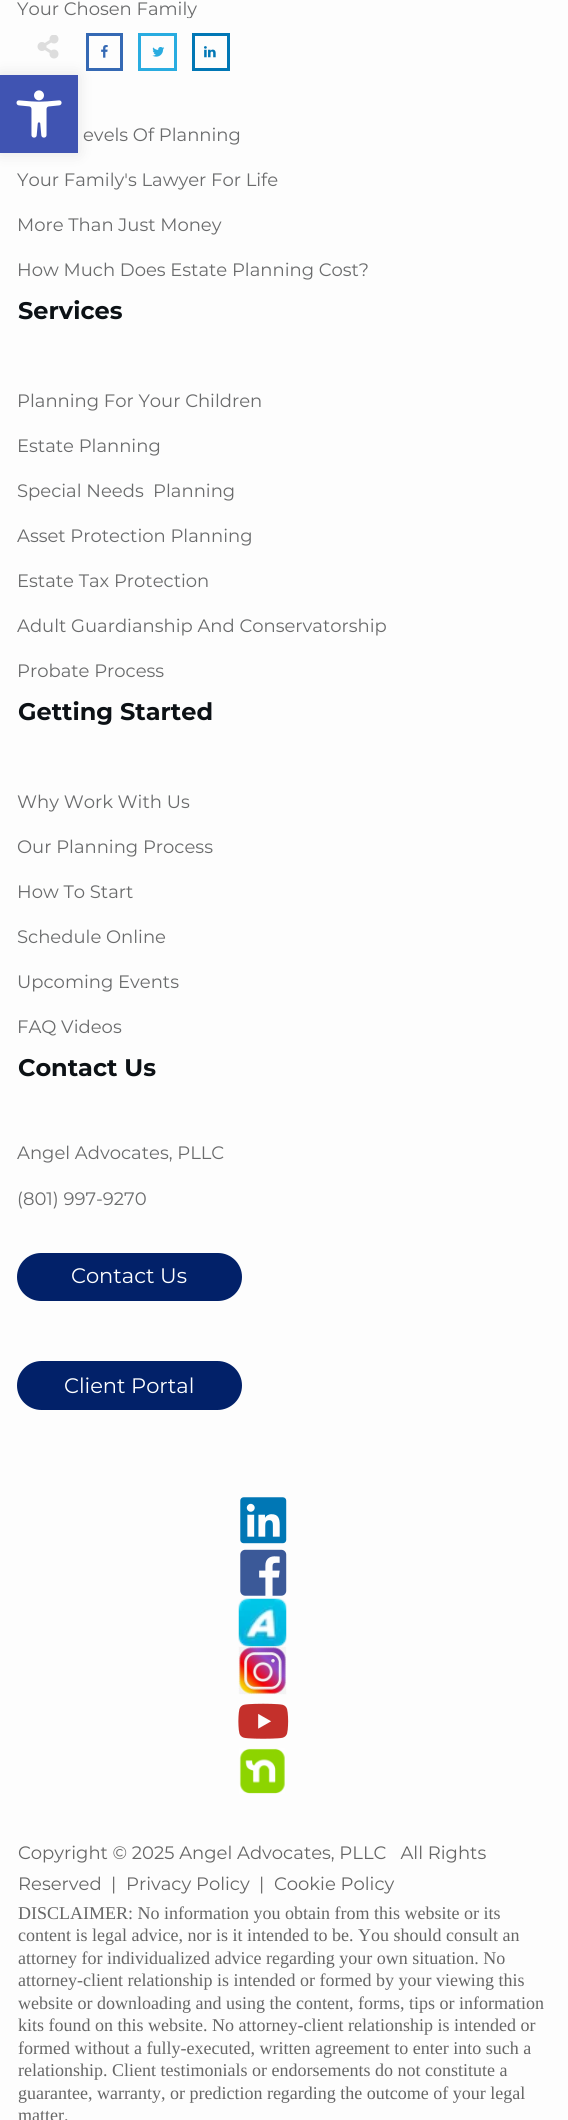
import math
import cairocffi as cairo

surface = cairo.ImageSurface(cairo.FORMAT_RGB24, 568, 2120)
ctx = cairo.Context(surface)
options = cairo.FontOptions()
options.set_hint_metrics(cairo.HINT_METRICS_OFF)
options.set_hint_style(cairo.HINT_STYLE_NONE)
ctx.set_font_options(options)
ctx.set_miter_limit(4)


def rgb(r, g, b):
    ctx.set_source_rgb(r / 255, g / 255, b / 255)


def face(family, size, italic, bold):
    ctx.select_font_face(family, cairo.FONT_SLANT_ITALIC if italic else cairo.FONT_SLANT_NORMAL, cairo.FONT_WEIGHT_BOLD if bold else cairo.FONT_WEIGHT_NORMAL)
    ctx.set_font_size(size)


def label(x, y, s):
    ctx.move_to(x, y)
    ctx.show_text(s)


def rect(x, y, w, h):
    ctx.rectangle(x, y, w, h)
    ctx.fill()


def rrect(x, y, w, h, r):
    ctx.new_sub_path()
    for i, (u, v) in enumerate([(x + w - r, y + h - r), (x + r, y + h - r), (x + r, y + r), (x + w - r, y + r)]):
        ctx.arc(u, v, r, i * math.pi / 2, (i + 1) * math.pi / 2)
    ctx.close_path()


def soft_shadow(x, y, w, h, r, blur, alpha):
    ctx.push_group_with_content(cairo.CONTENT_ALPHA)
    ctx.set_operator(cairo.OPERATOR_SOURCE)
    for i in range(15, -16, -2):
        e = blur * i / 6
        if min(w, h) + 2 * e > 0:
            ctx.set_source_rgba(0, 0, 0, alpha * math.erfc((i - 1) / 8.5) / 2)
            rrect(x - e, y - e, w + 2 * e, h + 2 * e, max(0, min(r + e + blur * .6, min(w, h) / 2 + e)))
            ctx.fill()
    ctx.mask(ctx.pop_group())


def image(path, x, y, w, h):
    ctx.save()
    ctx.set_source_surface(cairo.ImageSurface.create_from_png(path), x, y)
    ctx.rectangle(x, y, w, h)
    ctx.fill()
    ctx.restore()


rgb(253, 253, 253)
ctx.paint()
face('Montserrat', 18, 0, 0)
rgb(106, 107, 108)
label(17, 15, 'Your Chosen Family')
label(83, 141, 'evels Of Planning')
label(17, 186, 'Your Family\'s Lawyer For Life')
label(17, 231, 'More Than Just Money')
label(17, 276, 'How Much Does Estate Planning Cost?')
face('Montserrat', 24, 0, 1)
rgb(12, 17, 21)
label(18, 319, 'Services')
face('Montserrat', 18, 0, 0)
rgb(106, 107, 108)
label(17, 407, 'Planning For Your Children')
label(17, 452, 'Estate Planning')
label(17, 497, 'Special Needs  Planning')
label(17, 542, 'Asset Protection Planning')
label(17, 587, 'Estate Tax Protection')
label(17, 632, 'Adult Guardianship And Conservatorship')
label(17, 677, 'Probate Process')
face('Montserrat', 24, 0, 1)
rgb(12, 17, 21)
label(18, 720, 'Getting Started')
face('Montserrat', 18, 0, 0)
rgb(106, 107, 108)
label(17, 808, 'Why Work With Us')
label(17, 853, 'Our Planning Process')
label(17, 898, 'How To Start')
label(17, 943, 'Schedule Online')
label(17, 988, 'Upcoming Events')
label(17, 1033, 'FAQ Videos')
face('Montserrat', 24, 0, 1)
rgb(12, 17, 21)
label(18, 1076, 'Contact Us')
face('Montserrat', 18, 0, 0)
rgb(106, 107, 108)
label(17, 1159, 'Angel Advocates, PLLC')
label(17, 1205, '(801) 997-9270')
rgb(2, 33, 105)
rrect(17, 1253, 225, 48, 24)
ctx.fill()
face('Montserrat', 21, 0, 0)
rgb(255, 255, 255)
label(71, 1283, 'Contact Us')
rgb(2, 33, 105)
rrect(17, 1361, 225, 49, 24.5)
ctx.fill()
rgb(255, 255, 255)
label(64, 1393, 'Client Portal')
image('image0.png', 240, 1497, 47, 47)
image('image1.png', 240, 1549, 47, 47)
image('image2.png', 238, 1598, 49, 49)
image('image3.png', 238, 1646, 49, 49)
image('image4.png', 238, 1703, 51, 36)
image('image5.png', 239, 1748, 46, 46)
face('Montserrat', 18, 0, 0)
rgb(102, 102, 102)
label(18, 1859, 'Copyright © 2025 Angel Advocates, PLLC   All Rights')
label(18, 1890, 'Reserved  |')
label(126, 1890, 'Privacy Policy')
label(259, 1890, '|')
label(274, 1890, 'Cookie Policy')
face('Liberation Serif', 18, 0, 0)
label(18, 1919, 'DISCLAIMER: No information you obtain from this website or its')
label(18, 1941, 'content is legal advice, nor is it intended to be. You should consult an')
label(18, 1964, 'attorney for individualized advice regarding your own situation. No')
label(18, 1986, 'attorney-client relationship is intended or formed by your viewing this')
label(18, 2009, 'website or downloading and using the content, forms, tips or information')
label(18, 2031, 'kits found on this website. No attorney-client relationship is intended or')
label(18, 2054, 'formed without a fully-executed, written agreement to enter into such a')
label(18, 2076, 'relationship. Client testimonials or endorsements do not constitute a')
label(18, 2099, 'guarantee, warranty, or prediction regarding the outcome of your legal')
label(18, 2121, 'matter.')
ctx.set_source_rgba(1, 1, 1, 0.85)
rect(186, 18, 5, 1)
image('image6.png', 37, 35, 22, 24)
ctx.rectangle(87.5, 34.5, 34, 35)
rgb(53, 105, 180)
ctx.set_line_width(3)
ctx.stroke()
image('image7.png', 101, 45, 7, 13)
ctx.rectangle(139.5, 34.5, 36, 35)
rgb(41, 172, 224)
ctx.stroke()
image('image8.png', 152, 47, 13, 10)
ctx.rectangle(193.5, 34.5, 35, 35)
rgb(1, 119, 181)
ctx.stroke()
image('image9.png', 204, 46, 12, 12)
rgb(0, 0, 0)
soft_shadow(0, 75, 78, 78, 0, 7.5, 0.1)
rgb(64, 84, 178)
rect(0, 75, 78, 78)
image('image10.png', 16, 90, 46, 48)
surface.write_to_png('render.png')
